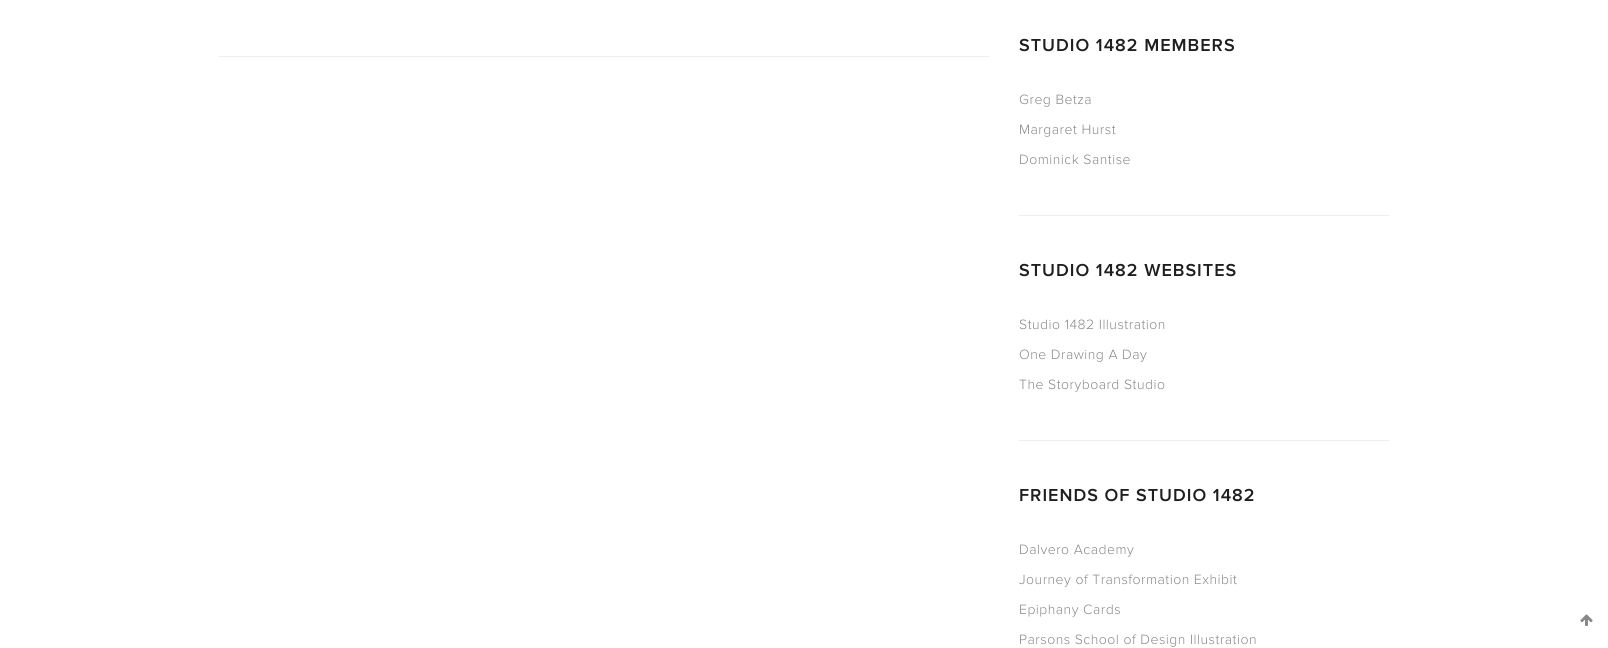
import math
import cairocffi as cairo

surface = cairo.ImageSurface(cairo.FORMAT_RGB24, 1608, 648)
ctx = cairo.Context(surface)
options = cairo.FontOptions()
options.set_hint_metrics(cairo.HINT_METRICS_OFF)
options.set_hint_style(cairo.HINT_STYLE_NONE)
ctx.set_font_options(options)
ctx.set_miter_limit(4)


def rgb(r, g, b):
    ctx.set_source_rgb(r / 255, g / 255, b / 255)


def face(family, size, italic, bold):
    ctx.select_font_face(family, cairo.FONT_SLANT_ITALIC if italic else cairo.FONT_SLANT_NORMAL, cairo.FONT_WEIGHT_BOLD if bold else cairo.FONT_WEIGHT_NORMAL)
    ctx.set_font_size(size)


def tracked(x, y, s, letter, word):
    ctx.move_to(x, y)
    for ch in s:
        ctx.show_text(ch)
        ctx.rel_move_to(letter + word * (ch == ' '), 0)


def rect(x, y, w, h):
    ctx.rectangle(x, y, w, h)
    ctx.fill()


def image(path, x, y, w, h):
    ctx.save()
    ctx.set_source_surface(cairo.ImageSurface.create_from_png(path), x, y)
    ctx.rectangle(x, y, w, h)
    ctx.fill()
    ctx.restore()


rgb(255, 255, 255)
ctx.paint()
rgb(238, 238, 238)
rect(219, 56, 770, 1)
rect(1019, 215, 370, 1)
face('Proxima Nova SemiBold', 18, 0, 0)
rgb(31, 31, 31)
tracked(1019, 51, 'STUDIO 1482 MEMBERS', 1, 0)
face('Proxima Nova Light', 14, 0, 0)
rgb(136, 136, 136)
tracked(1019, 104, 'Greg Betza', 0.5, 0)
tracked(1019, 134, 'Margaret Hurst', 0.5, 0)
tracked(1019, 164, 'Dominick Santise', 0.5, 0)
rgb(238, 238, 238)
rect(1019, 440, 370, 1)
face('Proxima Nova SemiBold', 18, 0, 0)
rgb(31, 31, 31)
tracked(1019, 276, 'STUDIO 1482 WEBSITES', 1, 0)
face('Proxima Nova Light', 14, 0, 0)
rgb(136, 136, 136)
tracked(1019, 329, 'Studio 1482 Illustration', 0.5, 0)
tracked(1019, 359, 'One Drawing A Day', 0.5, 0)
tracked(1019, 389, 'The Storyboard Studio', 0.5, 0)
face('Proxima Nova SemiBold', 18, 0, 0)
rgb(31, 31, 31)
tracked(1019, 501, 'FRIENDS OF STUDIO 1482', 1, 0)
face('Proxima Nova Light', 14, 0, 0)
rgb(136, 136, 136)
tracked(1019, 554, 'Dalvero Academy', 0.5, 0)
tracked(1019, 584, 'Journey of Transformation Exhibit', 0.5, 0)
tracked(1019, 614, 'Epiphany Cards', 0.5, 0)
tracked(1019, 644, 'Parsons School of Design Illustration', 0.5, 0)
image('image0.png', 1580, 614, 13, 12)
surface.write_to_png('render.png')
